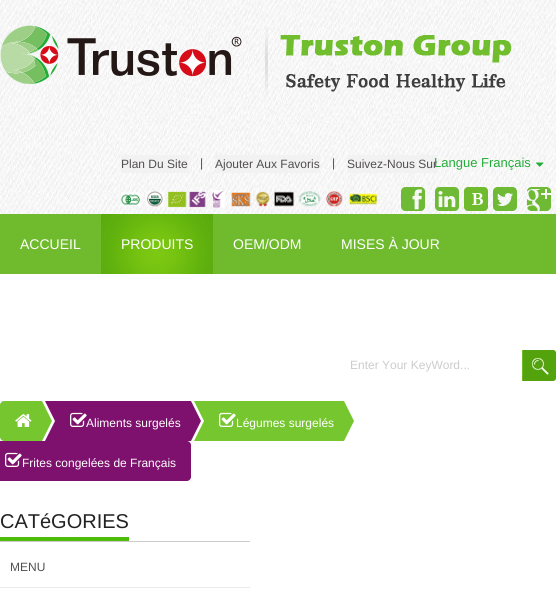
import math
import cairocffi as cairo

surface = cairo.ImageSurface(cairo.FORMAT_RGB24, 556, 604)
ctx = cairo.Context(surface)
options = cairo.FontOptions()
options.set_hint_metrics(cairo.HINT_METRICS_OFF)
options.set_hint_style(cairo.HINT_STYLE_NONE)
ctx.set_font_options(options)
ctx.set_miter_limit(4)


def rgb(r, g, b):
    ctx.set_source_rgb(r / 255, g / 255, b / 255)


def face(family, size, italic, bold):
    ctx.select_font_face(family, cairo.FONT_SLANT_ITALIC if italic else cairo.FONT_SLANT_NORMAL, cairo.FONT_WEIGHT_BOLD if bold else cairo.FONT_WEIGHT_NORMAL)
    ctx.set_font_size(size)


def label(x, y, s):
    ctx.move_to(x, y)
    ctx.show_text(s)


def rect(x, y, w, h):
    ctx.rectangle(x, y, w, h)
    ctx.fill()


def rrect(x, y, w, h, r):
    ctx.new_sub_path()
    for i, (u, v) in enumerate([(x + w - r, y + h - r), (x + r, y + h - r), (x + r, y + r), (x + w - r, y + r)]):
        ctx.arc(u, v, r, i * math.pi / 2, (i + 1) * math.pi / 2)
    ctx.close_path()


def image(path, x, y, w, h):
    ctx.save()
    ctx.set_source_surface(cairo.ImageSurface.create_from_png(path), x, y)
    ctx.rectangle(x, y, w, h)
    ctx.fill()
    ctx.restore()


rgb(255, 255, 255)
ctx.paint()
image('image0.png', 0, 0, 556, 214)
image('image1.png', 0, 25, 512, 70)
rgb(242, 242, 242)
rect(121, 155, 67, 18)
face('Liberation Sans', 12, 0, 0)
rgb(82, 79, 79)
label(121, 168, 'Plan Du Site')
label(200, 167, '|')
rgb(242, 242, 242)
rect(215, 155, 105, 18)
rgb(82, 79, 79)
label(215, 168, 'Ajouter Aux Favoris')
label(332, 167, '|')
rgb(242, 242, 242)
rect(347, 155, 90, 18)
rgb(82, 79, 79)
label(347, 168, 'Suivez-Nous Sur')
face('Liberation Sans', 13, 0, 0)
rgb(35, 172, 56)
label(434, 167, 'Langue Français')
image('image2.png', 536, 162, 8, 5)
image('image3.png', 120, 190, 258, 18)
image('image4.png', 401, 187, 24, 24)
image('image5.png', 435, 187, 24, 24)
rgb(112, 187, 45)
rrect(464, 187, 24, 24, 4)
ctx.fill()
image('image6.png', 472, 193, 11, 12)
image('image7.png', 493, 187, 24, 24)
image('image8.png', 527, 187, 24, 24)
rect(0, 214, 556, 60)
face('Liberation Sans', 14, 0, 0)
rgb(255, 255, 255)
label(20, 249, 'ACCUEIL')
image('image9.png', 101, 214, 112, 60)
label(121, 249, 'PRODUITS')
label(233, 249, 'OEM/ODM')
label(341, 249, 'MISES À JOUR')
face('Liberation Sans', 12, 0, 0)
rgb(204, 204, 204)
label(350, 369, 'Enter Your KeyWord...')
image('image10.png', 522, 350, 34, 31)
rgb(118, 198, 47)
ctx.new_path()
ctx.move_to(4, 401)
ctx.line_to(42, 401)
ctx.line_to(42, 441)
ctx.line_to(4, 441)
ctx.curve_to(2, 441, 0, 439, 0, 437)
ctx.line_to(0, 405)
ctx.curve_to(0, 403, 2, 401, 4, 401)
ctx.close_path()
ctx.fill()
image('image11.png', 15, 414, 17, 13)
ctx.new_path()
ctx.move_to(42, 441)
ctx.line_to(42, 401)
ctx.line_to(52, 421)
ctx.close_path()
ctx.fill()
rgb(126, 17, 109)
rect(65, 401, 126, 40)
ctx.new_path()
ctx.move_to(45, 401)
ctx.line_to(65, 401)
ctx.line_to(55, 421)
ctx.close_path()
ctx.fill()
rect(55, 401, 10, 40)
ctx.new_path()
ctx.move_to(65, 441)
ctx.line_to(45, 441)
ctx.line_to(55, 421)
ctx.close_path()
ctx.fill()
image('image12.png', 70, 412, 17, 15)
rgb(255, 255, 255)
label(86, 427, 'Aliments surgelés')
rgb(126, 17, 109)
ctx.new_path()
ctx.move_to(191, 441)
ctx.line_to(191, 401)
ctx.line_to(201, 421)
ctx.close_path()
ctx.fill()
rgb(118, 198, 47)
rect(214, 401, 130, 40)
ctx.new_path()
ctx.move_to(194, 401)
ctx.line_to(214, 401)
ctx.line_to(204, 421)
ctx.close_path()
ctx.fill()
rect(204, 401, 10, 40)
ctx.new_path()
ctx.move_to(214, 441)
ctx.line_to(194, 441)
ctx.line_to(204, 421)
ctx.close_path()
ctx.fill()
image('image13.png', 219, 412, 17, 15)
rgb(255, 255, 255)
label(236, 427, 'Légumes surgelés')
rgb(118, 198, 47)
ctx.new_path()
ctx.move_to(344, 441)
ctx.line_to(344, 401)
ctx.line_to(354, 421)
ctx.close_path()
ctx.fill()
rgb(126, 17, 109)
ctx.new_path()
ctx.move_to(0, 441)
ctx.line_to(187, 441)
ctx.curve_to(189, 441, 191, 443, 191, 445)
ctx.line_to(191, 477)
ctx.curve_to(191, 479, 189, 481, 187, 481)
ctx.line_to(0, 481)
ctx.close_path()
ctx.fill()
image('image12.png', 5, 452, 17, 15)
rgb(255, 255, 255)
label(22, 467, 'Frites congelées de Français')
rgb(204, 204, 204)
rect(0, 541, 250, 1)
face('Liberation Sans', 20, 0, 0)
rgb(34, 34, 34)
label(0, 528, 'CATéGORIES')
rgb(78, 189, 10)
rect(0, 537, 129, 4)
rgb(236, 235, 235)
rect(0, 587, 250, 1)
face('Liberation Sans', 12, 0, 0)
rgb(82, 79, 79)
label(10, 571, 'MENU')
surface.write_to_png('render.png')
